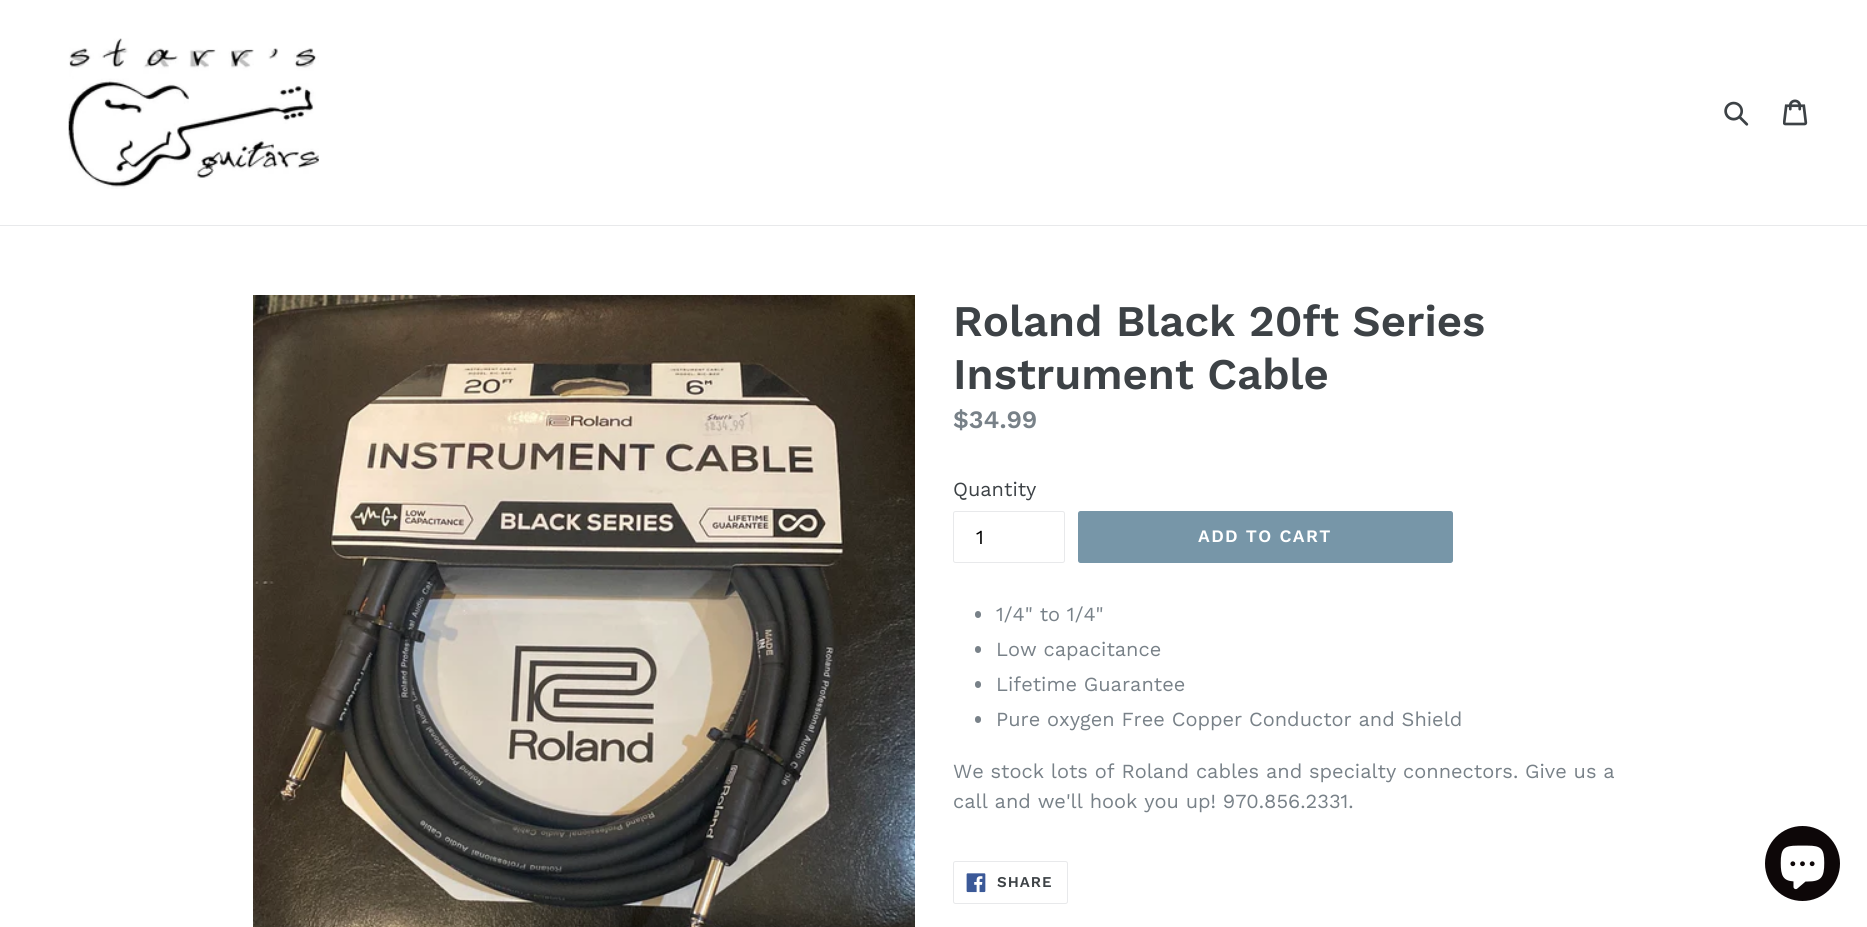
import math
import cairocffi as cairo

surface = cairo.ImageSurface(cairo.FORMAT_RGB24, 1867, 927)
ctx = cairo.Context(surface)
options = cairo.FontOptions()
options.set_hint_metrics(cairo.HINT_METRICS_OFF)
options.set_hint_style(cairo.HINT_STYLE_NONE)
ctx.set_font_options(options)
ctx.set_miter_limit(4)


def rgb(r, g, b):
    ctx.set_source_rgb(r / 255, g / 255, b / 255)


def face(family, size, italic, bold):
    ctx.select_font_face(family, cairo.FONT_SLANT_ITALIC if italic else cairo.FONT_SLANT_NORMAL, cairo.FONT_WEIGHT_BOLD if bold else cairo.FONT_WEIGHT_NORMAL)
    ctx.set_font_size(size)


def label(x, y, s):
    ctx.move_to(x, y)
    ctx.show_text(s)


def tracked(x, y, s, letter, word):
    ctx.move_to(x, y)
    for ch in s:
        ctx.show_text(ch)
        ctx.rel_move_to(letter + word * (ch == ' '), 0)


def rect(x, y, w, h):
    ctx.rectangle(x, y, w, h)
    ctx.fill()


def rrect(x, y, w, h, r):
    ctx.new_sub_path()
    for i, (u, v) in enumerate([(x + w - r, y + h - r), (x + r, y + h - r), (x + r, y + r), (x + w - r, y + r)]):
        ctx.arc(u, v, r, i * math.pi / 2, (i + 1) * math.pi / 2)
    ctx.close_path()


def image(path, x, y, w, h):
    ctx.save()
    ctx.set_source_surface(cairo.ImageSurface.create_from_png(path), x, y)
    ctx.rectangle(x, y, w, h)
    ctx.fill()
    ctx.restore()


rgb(255, 255, 255)
ctx.paint()
rgb(232, 233, 235)
rect(0, 225, 1867, 1)
image('image0.png', 68, 38, 251, 151)
image('image1.png', 1724, 101, 25, 25)
image('image2.png', 1783, 99, 25, 27)
image('image3.png', 253, 295, 662, 632)
face('Work Sans SemiBold', 43.75, 0, 0)
rgb(61, 66, 70)
label(953, 336, 'Roland Black 20ft Series')
label(953, 389, 'Instrument Cable')
face('Work Sans SemiBold', 25, 0, 0)
rgb(120, 129, 136)
label(953, 428, '$34.99')
face('Work Sans', 20, 0, 0)
rgb(61, 66, 70)
label(953, 496, 'Quantity')
rrect(953.5, 511.5, 111, 51, 2)
rgb(232, 233, 235)
ctx.set_line_width(1)
ctx.stroke()
rgb(0, 0, 0)
label(976, 544, '1')
rgb(119, 150, 168)
rrect(1078, 511, 375, 52, 2.5)
ctx.fill()
face('Work Sans SemiBold', 17.5, 0, 0)
rgb(255, 255, 255)
tracked(1198, 542, 'ADD TO CART', 1.4, 0)
rgb(120, 129, 136)
rrect(975, 611, 6, 7, 3)
ctx.fill()
face('Work Sans', 20, 0, 0)
label(996, 621, '1/4" to 1/4"')
rrect(975, 646, 6, 7, 3)
ctx.fill()
label(996, 656, 'Low capacitance')
rrect(975, 681, 6, 7, 3)
ctx.fill()
label(996, 691, 'Lifetime Guarantee')
rrect(975, 716, 6, 7, 3)
ctx.fill()
label(996, 726, 'Pure oxygen Free Copper Conductor and Shield')
label(953, 778, 'We stock lots of Roland cables and specialty connectors. Give us a')
label(953, 808, 'call and we\'ll hook you up! 970.856.2331.')
rrect(953.5, 861.5, 114, 42, 2)
rgb(232, 233, 235)
ctx.stroke()
image('image4.png', 966, 873, 20, 20)
face('Work Sans SemiBold', 15, 0, 0)
rgb(61, 66, 70)
tracked(997, 887, 'SHARE', 1, 0)
rgb(13, 7, 8)
ctx.new_path()
ctx.arc(1802.5, 863.5, 37.5, 0, 2 * math.pi)
ctx.fill()
image('image5.png', 1780, 845, 45, 45)
surface.write_to_png('render.png')
